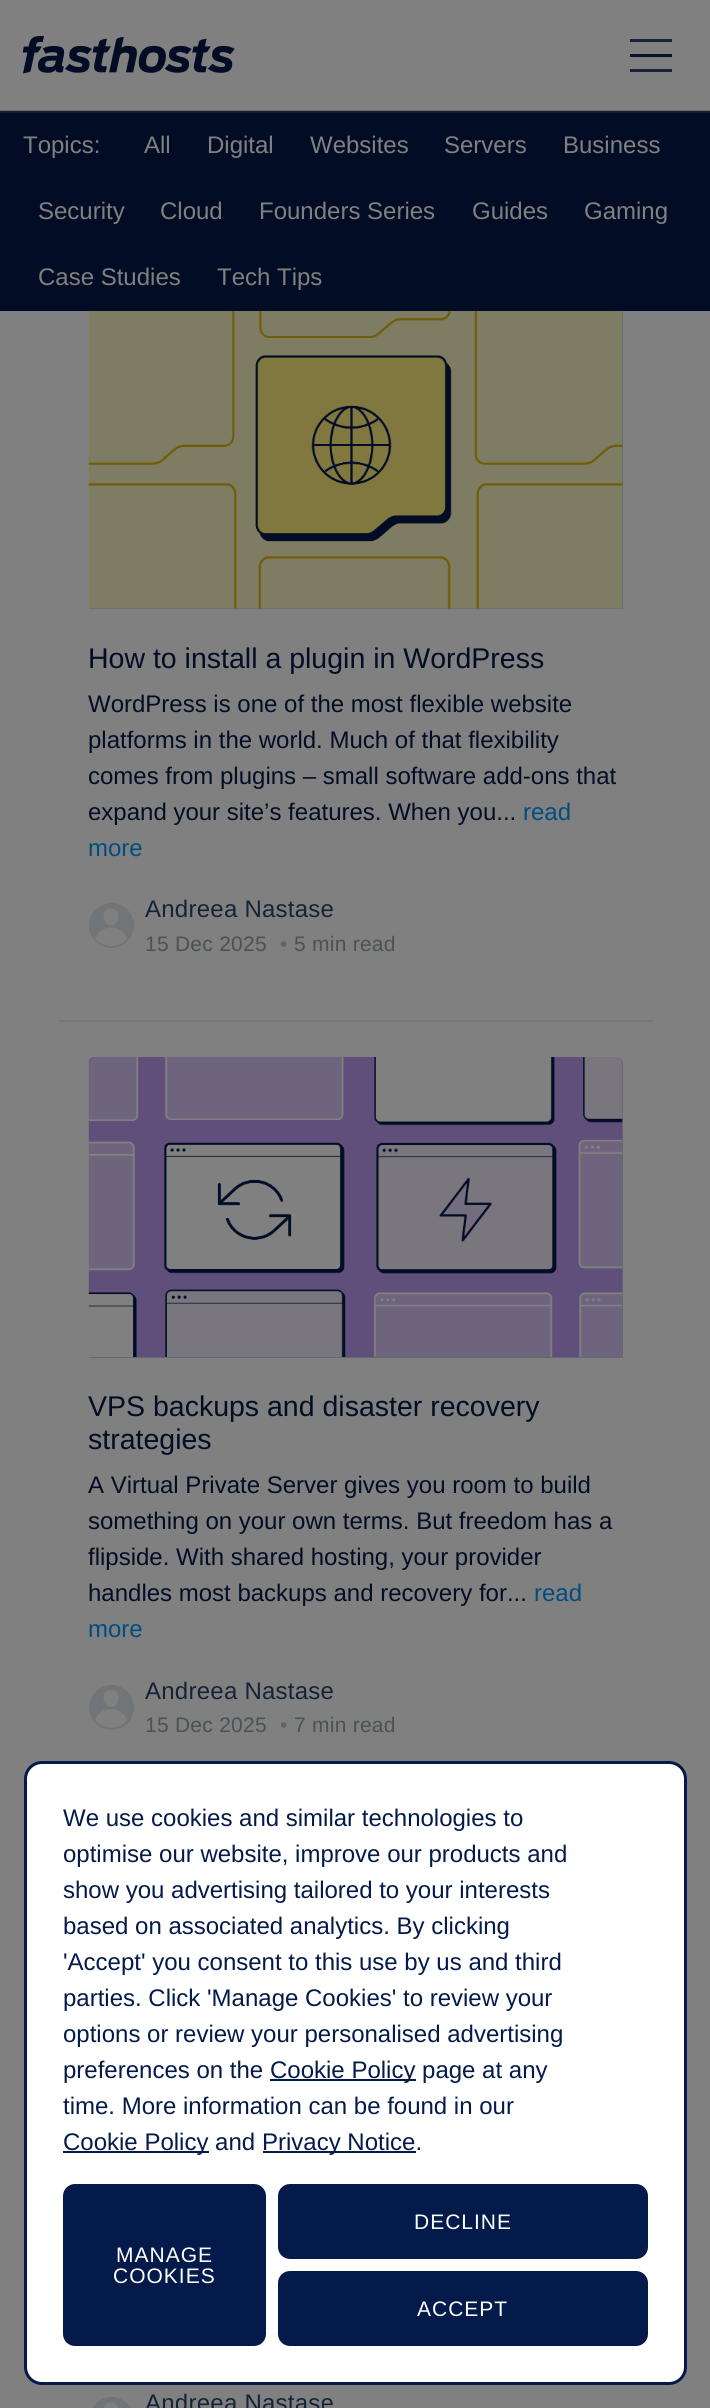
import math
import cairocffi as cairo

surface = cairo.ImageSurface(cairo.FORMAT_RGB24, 710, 2408)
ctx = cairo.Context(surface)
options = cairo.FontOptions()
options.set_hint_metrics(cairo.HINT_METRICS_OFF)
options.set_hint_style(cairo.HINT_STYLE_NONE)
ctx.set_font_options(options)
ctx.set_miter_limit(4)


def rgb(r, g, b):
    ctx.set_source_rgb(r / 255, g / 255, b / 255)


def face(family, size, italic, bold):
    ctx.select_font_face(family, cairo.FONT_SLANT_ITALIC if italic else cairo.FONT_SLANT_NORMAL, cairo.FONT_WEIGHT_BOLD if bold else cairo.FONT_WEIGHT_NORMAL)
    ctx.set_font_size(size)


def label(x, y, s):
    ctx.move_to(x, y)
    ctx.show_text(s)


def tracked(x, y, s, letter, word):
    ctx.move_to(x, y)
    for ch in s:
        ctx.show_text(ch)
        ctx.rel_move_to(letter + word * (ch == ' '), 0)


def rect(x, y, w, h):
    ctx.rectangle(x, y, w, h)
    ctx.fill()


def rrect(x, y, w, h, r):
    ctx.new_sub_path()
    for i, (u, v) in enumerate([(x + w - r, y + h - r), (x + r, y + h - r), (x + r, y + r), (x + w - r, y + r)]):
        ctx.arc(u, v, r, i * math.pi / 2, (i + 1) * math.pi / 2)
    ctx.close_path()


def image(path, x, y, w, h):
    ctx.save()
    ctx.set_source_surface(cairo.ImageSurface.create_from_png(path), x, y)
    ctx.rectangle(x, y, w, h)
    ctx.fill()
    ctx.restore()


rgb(128, 128, 128)
ctx.paint()
rgb(21, 30, 51)
rect(0, 111, 710, 2)
ctx.set_source_rgba(0.102, 0.102, 0.102, 0.2)
rect(0, 110, 710, 2)
image('image0.png', 23, 36, 212, 38)
rgb(27, 36, 55)
rect(630, 39, 42, 3)
rgb(7, 18, 41)
rect(630, 54, 42, 3)
rgb(27, 36, 55)
rect(630, 69, 42, 3)
rgb(99, 105, 109)
ctx.new_path()
ctx.move_to(94, 309)
ctx.line_to(618, 309)
ctx.curve_to(621, 309, 623, 311, 623, 314)
ctx.line_to(623, 609)
ctx.line_to(89, 609)
ctx.line_to(89, 314)
ctx.curve_to(89, 311, 91, 309, 94, 309)
ctx.close_path()
ctx.fill()
rgb(2, 13, 37)
rect(0, 113, 710, 198)
face('Liberation Sans', 24, 0, 0)
rgb(128, 128, 128)
label(23, 153, 'Topics:')
label(144, 153, 'All')
label(207, 153, 'Digital')
label(310, 153, 'Websites')
label(444, 153, 'Servers')
label(563, 153, 'Business')
label(38, 219, 'Security')
label(160, 219, 'Cloud')
label(259, 219, 'Founders Series')
label(472, 219, 'Guides')
label(584, 219, 'Gaming')
label(38, 285, 'Case Studies')
label(217, 285, 'Tech Tips')
rgb(117, 119, 121)
rect(59, 1020, 594, 2)
image('image1.png', 88, 311, 535, 298)
face('Liberation Sans', 28.5, 0, 0)
rgb(2, 13, 37)
label(88, 668, 'How to install a plugin in WordPress')
face('Liberation Sans', 24, 0, 0)
label(88, 712, 'WordPress is one of the most flexible website')
label(88, 748, 'platforms in the world. Much of that flexibility')
label(88, 784, 'comes from plugins – small software add-ons that')
label(88, 820, 'expand your site’s features. When you...')
rgb(0, 77, 128)
label(523, 820, 'read')
label(88, 856, 'more')
rgb(114, 117, 119)
ctx.new_path()
ctx.arc(111.5, 925.5, 24, 0, 2 * math.pi)
ctx.fill_preserve()
rgb(128, 128, 128)
ctx.set_line_width(3)
ctx.stroke()
ctx.set_fill_rule(cairo.FILL_RULE_EVEN_ODD)
ctx.new_path()
ctx.move_to(95, 938.5)
ctx.curve_to(100.5, 924, 121.5, 924, 127, 938.5)
ctx.curve_to(119, 948.5, 103, 948.5, 95, 938.5)
ctx.close_path()
ctx.move_to(111, 925.5)
ctx.curve_to(119.5, 925.5, 122, 908.5, 111, 908.5)
ctx.curve_to(100, 908.5, 102.5, 925.5, 111, 925.5)
ctx.close_path()
ctx.fill()
rgb(21, 35, 55)
tracked(145, 917, 'Andreea Nastase', 0.25, 0)
face('Liberation Sans', 21, 0, 0)
rgb(73, 82, 86)
tracked(145, 951, '15 Dec 2025', 0.25, 0)
rgb(95, 100, 103)
tracked(280, 951, '•', 0.25, 0)
rgb(73, 82, 86)
tracked(294, 951, '5 min read', 0.25, 0)
rgb(99, 105, 109)
ctx.new_path()
ctx.move_to(94, 1058)
ctx.line_to(618, 1058)
ctx.curve_to(621, 1058, 623, 1060, 623, 1063)
ctx.line_to(623, 1358)
ctx.line_to(89, 1358)
ctx.line_to(89, 1063)
ctx.curve_to(89, 1060, 91, 1058, 94, 1058)
ctx.close_path()
ctx.fill()
image('image2.png', 88, 1057, 535, 300)
face('Liberation Sans', 28.5, 0, 0)
rgb(2, 13, 37)
label(88, 1416, 'VPS backups and disaster recovery')
label(88, 1449, 'strategies')
face('Liberation Sans', 24, 0, 0)
label(88, 1493, 'A Virtual Private Server gives you room to build')
label(88, 1529, 'something on your own terms. But freedom has a')
label(88, 1565, 'flipside. With shared hosting, your provider')
label(88, 1601, 'handles most backups and recovery for...')
rgb(0, 77, 128)
label(534, 1601, 'read')
label(88, 1637, 'more')
rgb(114, 117, 119)
ctx.new_path()
ctx.arc(111.5, 1707.5, 24, 0, 2 * math.pi)
ctx.fill_preserve()
rgb(128, 128, 128)
ctx.stroke()
ctx.new_path()
ctx.move_to(95, 1720)
ctx.curve_to(100.5, 1705.5, 121.5, 1705.5, 127, 1720)
ctx.curve_to(119, 1730, 103, 1730, 95, 1720)
ctx.close_path()
ctx.move_to(111, 1707)
ctx.curve_to(119.5, 1707, 122, 1690, 111, 1690)
ctx.curve_to(100, 1690, 102.5, 1707, 111, 1707)
ctx.close_path()
ctx.fill()
rgb(21, 35, 55)
tracked(145, 1699, 'Andreea Nastase', 0.25, 0)
face('Liberation Sans', 21, 0, 0)
rgb(73, 82, 86)
tracked(145, 1732, '15 Dec 2025', 0.25, 0)
rgb(95, 100, 103)
tracked(280, 1732, '•', 0.25, 0)
rgb(73, 82, 86)
tracked(294, 1732, '7 min read', 0.25, 0)
rgb(114, 117, 119)
rrect(87.5, 2395.5, 48, 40, 24)
ctx.fill_preserve()
rgb(128, 128, 128)
ctx.stroke()
image('image3.png', 104, 2402, 14, 6)
face('Liberation Sans', 24, 0, 0)
rgb(21, 35, 55)
tracked(145, 2411, 'Andreea Nastase', 0.25, 0)
rgb(255, 255, 255)
rrect(25.5, 1762.5, 660, 621, 16.5)
ctx.fill_preserve()
rgb(3, 26, 74)
ctx.stroke()
label(63, 1826, 'We use cookies and similar technologies to')
label(63, 1862, 'optimise our website, improve our products and')
label(63, 1898, 'show you advertising tailored to your interests')
label(63, 1934, 'based on associated analytics. By clicking')
label(63, 1970, '\'Accept\' you consent to this use by us and third')
label(63, 2006, 'parties. Click \'Manage Cookies\' to review your')
label(63, 2042, 'options or review your personalised advertising')
label(63, 2078, 'preferences on the')
rect(270, 2079, 146, 2)
label(270, 2078, 'Cookie Policy page at any')
label(63, 2114, 'time. More information can be found in our')
rect(63, 2151, 146, 2)
label(63, 2150, 'Cookie Policy and')
rect(263, 2151, 153, 2)
label(262, 2150, 'Privacy Notice.')
rrect(63, 2184, 203, 162, 12)
ctx.fill()
face('Liberation Sans', 21, 0, 0)
rgb(255, 255, 255)
tracked(116, 2262, 'MANAGE', 1, 0)
tracked(113, 2283, 'COOKIES', 1, 0)
rgb(3, 26, 74)
rrect(279.5, 2185.5, 367, 72, 10.5)
ctx.fill_preserve()
ctx.stroke()
rgb(255, 255, 255)
tracked(414, 2229, 'DECLINE', 1, 0)
rgb(3, 26, 74)
rrect(279.5, 2272.5, 367, 72, 10.5)
ctx.fill_preserve()
ctx.stroke()
rgb(255, 255, 255)
tracked(417, 2316, 'ACCEPT', 1, 0)
surface.write_to_png('render.png')
